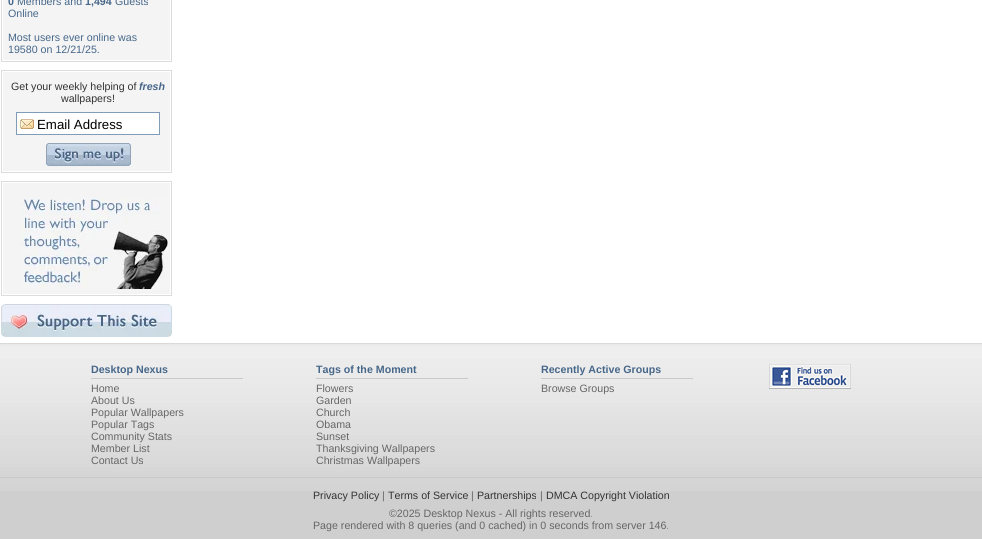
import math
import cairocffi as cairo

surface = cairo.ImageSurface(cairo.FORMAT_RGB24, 982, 539)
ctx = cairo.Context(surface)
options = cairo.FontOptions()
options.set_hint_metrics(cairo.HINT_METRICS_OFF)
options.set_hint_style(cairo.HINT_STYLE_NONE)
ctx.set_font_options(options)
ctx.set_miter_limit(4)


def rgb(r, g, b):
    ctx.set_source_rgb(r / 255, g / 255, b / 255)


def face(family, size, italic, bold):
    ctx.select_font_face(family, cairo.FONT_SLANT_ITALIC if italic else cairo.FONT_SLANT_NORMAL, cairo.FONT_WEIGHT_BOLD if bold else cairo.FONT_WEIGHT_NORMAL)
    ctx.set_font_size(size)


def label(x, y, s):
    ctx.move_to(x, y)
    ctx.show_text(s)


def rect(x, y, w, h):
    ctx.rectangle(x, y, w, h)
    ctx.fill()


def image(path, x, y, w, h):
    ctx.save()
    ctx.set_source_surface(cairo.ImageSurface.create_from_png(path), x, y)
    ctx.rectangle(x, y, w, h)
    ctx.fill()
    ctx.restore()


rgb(255, 255, 255)
ctx.paint()
ctx.rectangle(1.5, -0.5, 170, 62)
rgb(220, 220, 220)
ctx.set_line_width(1)
ctx.stroke()
rgb(244, 244, 244)
rect(3, 0, 167, 60)
face('Liberation Sans', 10.65, 0, 1)
rgb(70, 103, 138)
label(8, 5, '0')
face('Liberation Sans', 10.65, 0, 0)
label(17, 5, 'Members and')
face('Liberation Sans', 10.65, 0, 1)
label(85, 5, '1,494')
face('Liberation Sans', 10.65, 0, 0)
label(115, 5, 'Guests')
label(8, 17, 'Online')
label(8, 41, 'Most users ever online was')
label(8, 53, '19580 on 12/21/25.')
ctx.rectangle(1.5, 70.5, 170, 102)
rgb(220, 220, 220)
ctx.stroke()
rgb(244, 244, 244)
rect(3, 72, 167, 99)
rgb(51, 51, 51)
label(11, 90, 'Get your weekly helping of')
face('Liberation Sans', 10.65, 1, 1)
rgb(70, 103, 138)
label(139, 90, 'fresh')
face('Liberation Sans', 10.65, 0, 0)
rgb(51, 51, 51)
label(61, 102, 'wallpapers!')
rgb(255, 255, 255)
rect(17, 113, 142, 21)
image('image0.png', 17, 119, 17, 10)
ctx.rectangle(16.5, 112.5, 143, 22)
rgb(127, 157, 185)
ctx.stroke()
face('Liberation Sans', 13.25, 0, 0)
rgb(0, 0, 0)
label(37, 129, 'Email Address')
image('image1.png', 46, 143, 85, 23)
ctx.rectangle(1.5, 181.5, 170, 114)
rgb(220, 220, 220)
ctx.stroke()
rgb(244, 244, 244)
rect(3, 183, 167, 111)
image('image2.png', 21, 198, 147, 91)
image('image3.png', 1, 304, 171, 33)
rgb(207, 207, 207)
rect(0, 491, 982, 48)
image('image4.png', 0, 343, 982, 148)
face('Liberation Sans', 10.65, 0, 1)
rgb(70, 103, 138)
label(91, 373, 'Desktop Nexus')
rgb(201, 201, 201)
rect(91, 378, 152, 1)
face('Liberation Sans', 10.65, 0, 0)
rgb(102, 102, 102)
label(91, 392, 'Home')
label(91, 404, 'About Us')
label(91, 416, 'Popular Wallpapers')
label(91, 428, 'Popular Tags')
label(91, 440, 'Community Stats')
label(91, 452, 'Member List')
label(91, 464, 'Contact Us')
face('Liberation Sans', 10.65, 0, 1)
rgb(70, 103, 138)
label(316, 373, 'Tags of the Moment')
rgb(201, 201, 201)
rect(316, 378, 152, 1)
face('Liberation Sans', 10.65, 0, 0)
rgb(102, 102, 102)
label(316, 392, 'Flowers')
label(316, 404, 'Garden')
label(316, 416, 'Church')
label(316, 428, 'Obama')
label(316, 440, 'Sunset')
label(316, 452, 'Thanksgiving Wallpapers')
label(316, 464, 'Christmas Wallpapers')
face('Liberation Sans', 10.65, 0, 1)
rgb(70, 103, 138)
label(541, 373, 'Recently Active Groups')
rgb(201, 201, 201)
rect(541, 378, 152, 1)
face('Liberation Sans', 10.65, 0, 0)
rgb(102, 102, 102)
label(541, 392, 'Browse Groups')
image('image5.png', 769, 364, 82, 25)
rgb(201, 201, 201)
rect(0, 477, 982, 1)
rgb(51, 51, 51)
label(313, 499, 'Privacy Policy')
rgb(102, 102, 102)
label(382, 499, '|')
rgb(51, 51, 51)
label(388, 499, 'Terms of Service')
rgb(102, 102, 102)
label(471, 499, '|')
rgb(51, 51, 51)
label(477, 499, 'Partnerships')
rgb(102, 102, 102)
label(540, 499, '|')
rgb(51, 51, 51)
label(546, 499, 'DMCA Copyright Violation')
rgb(102, 102, 102)
label(389, 517, '©2025 Desktop Nexus - All rights reserved.')
label(313, 529, 'Page rendered with 8 queries (and 0 cached) in 0 seconds from server 146.')
surface.write_to_png('render.png')
